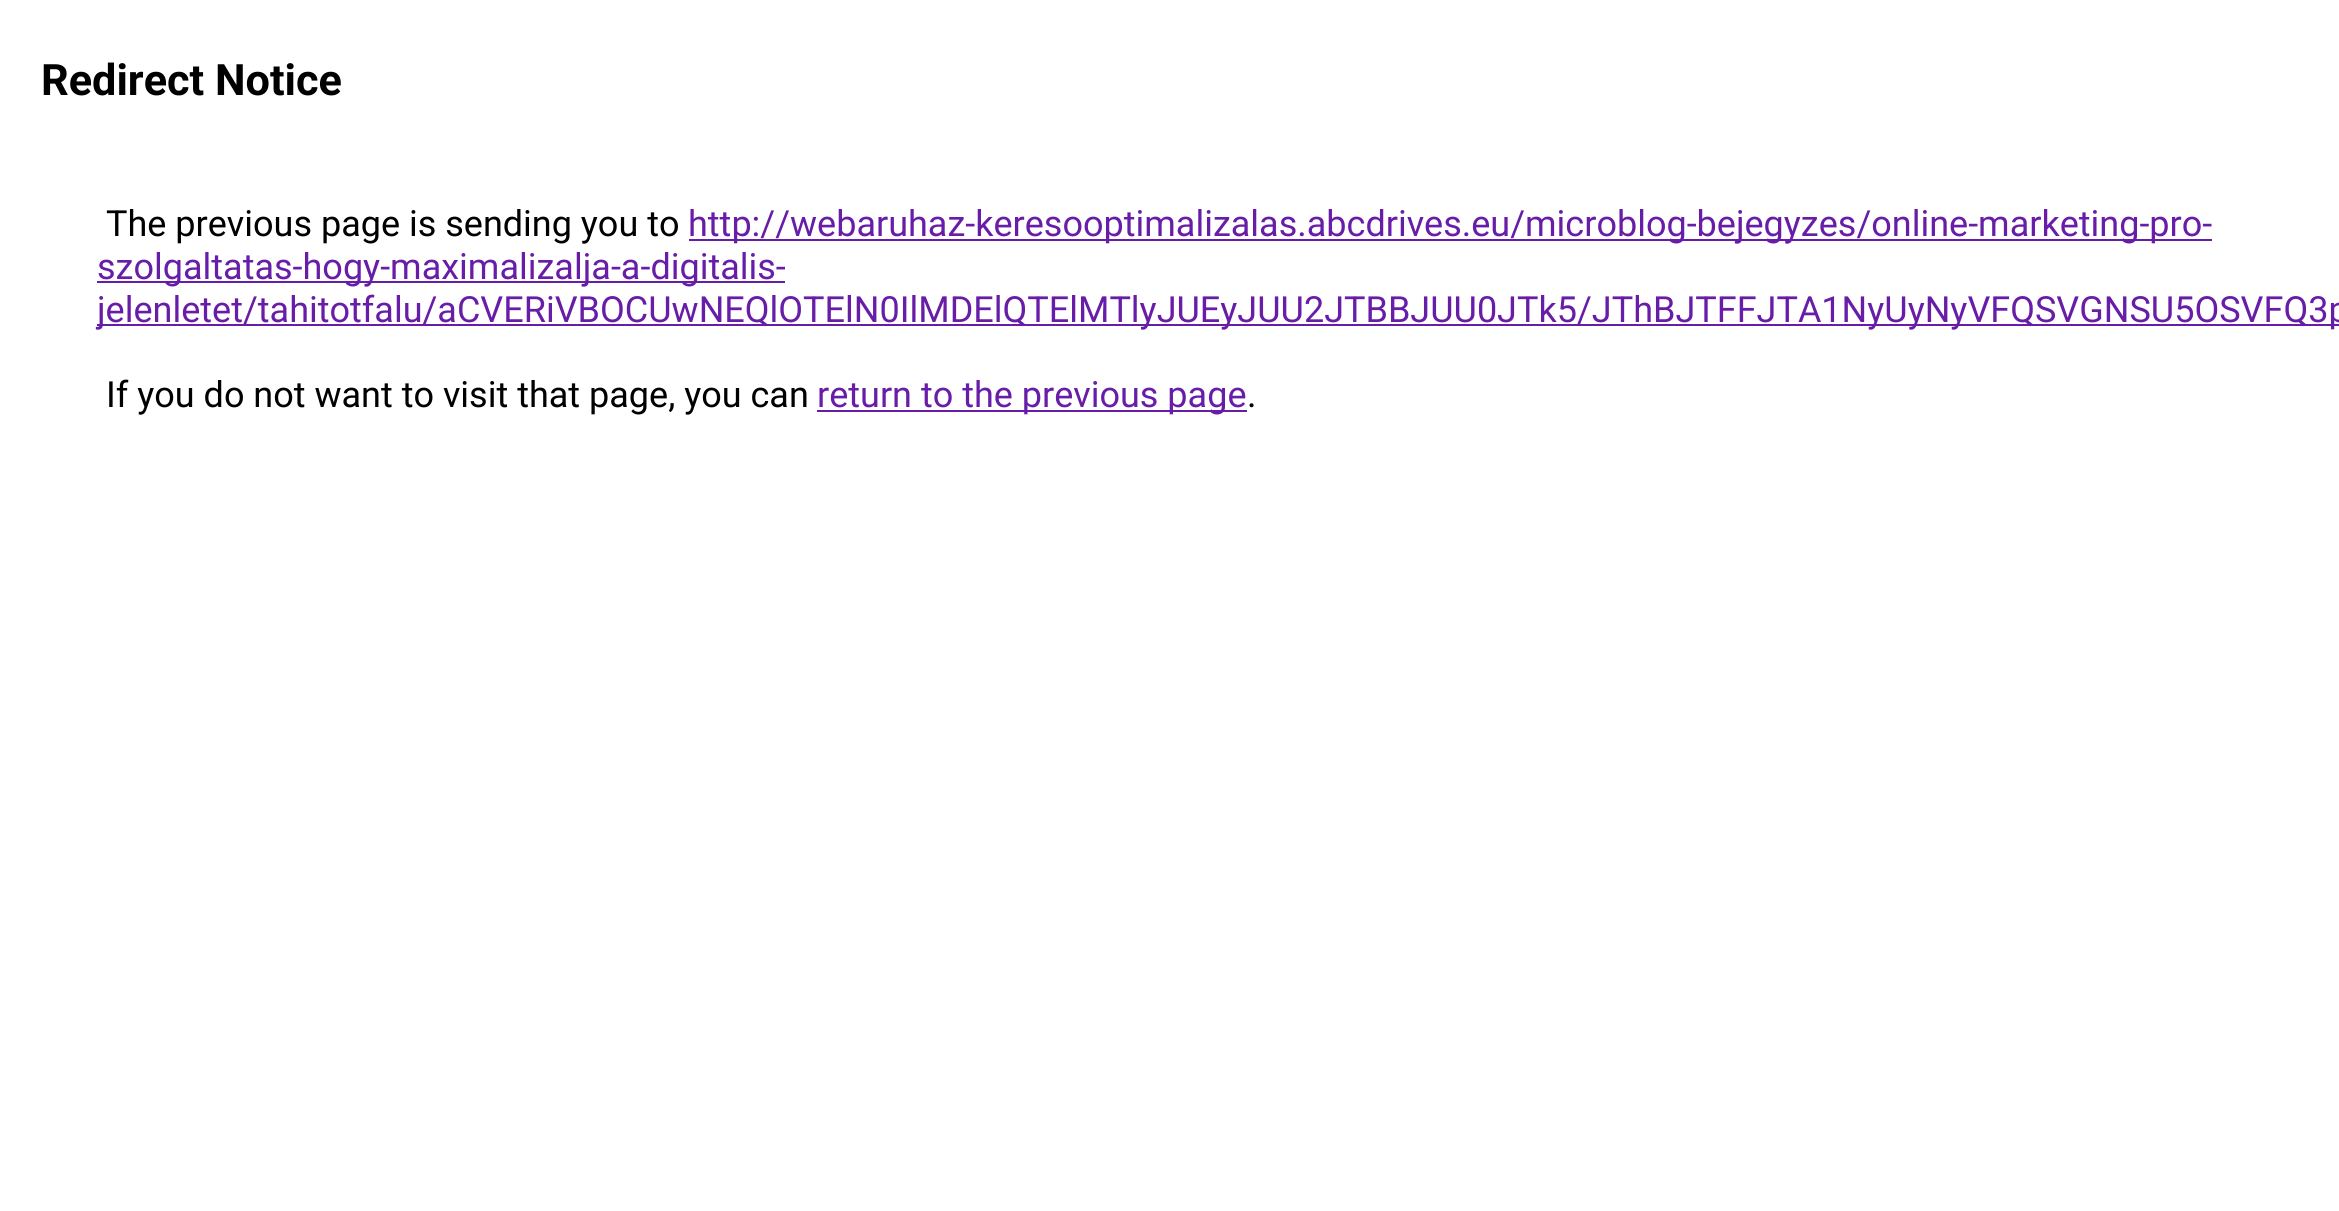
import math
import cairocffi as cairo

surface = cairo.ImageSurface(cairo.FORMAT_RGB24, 2339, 1211)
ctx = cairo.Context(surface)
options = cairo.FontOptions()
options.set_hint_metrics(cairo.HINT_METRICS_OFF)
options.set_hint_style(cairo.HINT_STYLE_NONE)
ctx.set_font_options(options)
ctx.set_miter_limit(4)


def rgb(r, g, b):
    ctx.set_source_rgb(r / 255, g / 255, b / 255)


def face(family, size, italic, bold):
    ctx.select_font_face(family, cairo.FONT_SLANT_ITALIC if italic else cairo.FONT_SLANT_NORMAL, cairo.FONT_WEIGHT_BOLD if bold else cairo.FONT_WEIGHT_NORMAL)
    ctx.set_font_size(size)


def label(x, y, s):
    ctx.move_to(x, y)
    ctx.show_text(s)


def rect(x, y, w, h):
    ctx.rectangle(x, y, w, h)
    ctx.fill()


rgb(255, 255, 255)
ctx.paint()
face('Roboto', 43.25, 0, 1)
rgb(0, 0, 0)
label(41, 95, 'Redirect Notice')
face('Roboto', 36, 0, 0)
label(106, 236, 'The previous page is sending you to')
rgb(104, 29, 168)
rect(689, 239, 1523, 2)
label(688, 236, 'http://webaruhaz-keresooptimalizalas.abcdrives.eu/microblog-bejegyzes/online-marketing-pro-')
rect(97, 281, 688, 2)
label(97, 279, 'szolgaltatas-hogy-maximalizalja-a-digitalis-')
rect(97, 324, 2242, 2)
label(97, 322, 'jelenletet/tahitotfalu/aCVERiVBOCUwNEQlOTElN0IlMDElQTElMTlyJUEyJUU2JTBBJUU0JTk5/JThBJTFFJTA1NyUyNyVFQSVGNSU5OSVFQ3p')
rgb(0, 0, 0)
label(106, 407, 'If you do not want to visit that page, you can')
rgb(104, 29, 168)
rect(817, 410, 430, 2)
label(817, 407, 'return to the previous page')
rgb(0, 0, 0)
label(1247, 407, '.')
surface.write_to_png('render.png')
